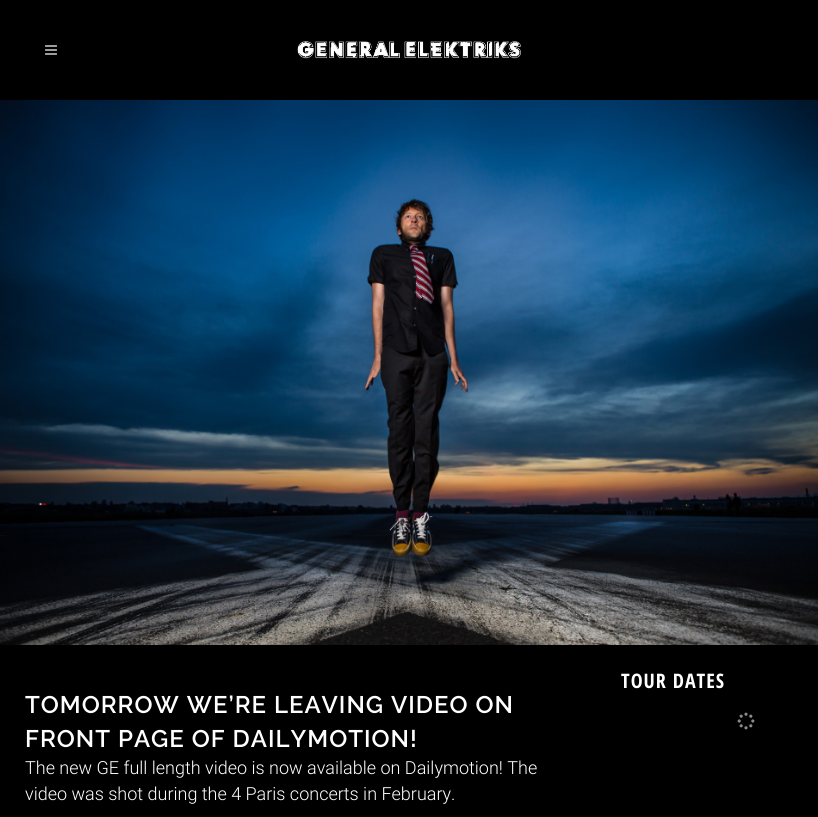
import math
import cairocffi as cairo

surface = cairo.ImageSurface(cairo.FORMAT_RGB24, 818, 817)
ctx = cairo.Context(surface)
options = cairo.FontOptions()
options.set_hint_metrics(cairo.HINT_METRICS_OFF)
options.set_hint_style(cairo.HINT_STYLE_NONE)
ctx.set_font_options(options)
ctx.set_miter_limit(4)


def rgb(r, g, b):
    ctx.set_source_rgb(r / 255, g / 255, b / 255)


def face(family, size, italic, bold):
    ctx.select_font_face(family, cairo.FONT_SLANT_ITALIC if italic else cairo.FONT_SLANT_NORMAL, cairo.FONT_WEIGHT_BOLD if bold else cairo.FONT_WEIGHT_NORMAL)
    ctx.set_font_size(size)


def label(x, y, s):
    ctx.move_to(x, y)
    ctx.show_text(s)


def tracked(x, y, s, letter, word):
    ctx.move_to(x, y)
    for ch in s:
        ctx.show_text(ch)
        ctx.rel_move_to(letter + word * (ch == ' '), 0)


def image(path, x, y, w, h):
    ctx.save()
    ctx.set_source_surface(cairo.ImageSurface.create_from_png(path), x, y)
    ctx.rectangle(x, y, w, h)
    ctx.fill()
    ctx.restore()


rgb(0, 0, 0)
ctx.paint()
image('image0.png', 45, 45, 12, 10)
image('image1.png', 297, 41, 224, 18)
image('image2.png', 0, 100, 818, 545)
face('Open Sans Condensed', 20, 0, 1)
rgb(255, 255, 255)
tracked(621, 688, 'TOUR DATES', 1, 0)
image('image3.png', 737, 712, 18, 18)
face('Raleway SemiBold', 24, 0, 0)
tracked(25, 713, 'TOMORROW WE’RE LEAVING VIDEO ON', 1, 0)
tracked(25, 747, 'FRONT PAGE OF DAILYMOTION!', 1, 0)
face('Roboto Light', 18, 0, 0)
label(25, 774, 'The new GE full length video is now available on Dailymotion! The')
label(25, 800, 'video was shot during the 4 Paris concerts in February.')
surface.write_to_png('render.png')
